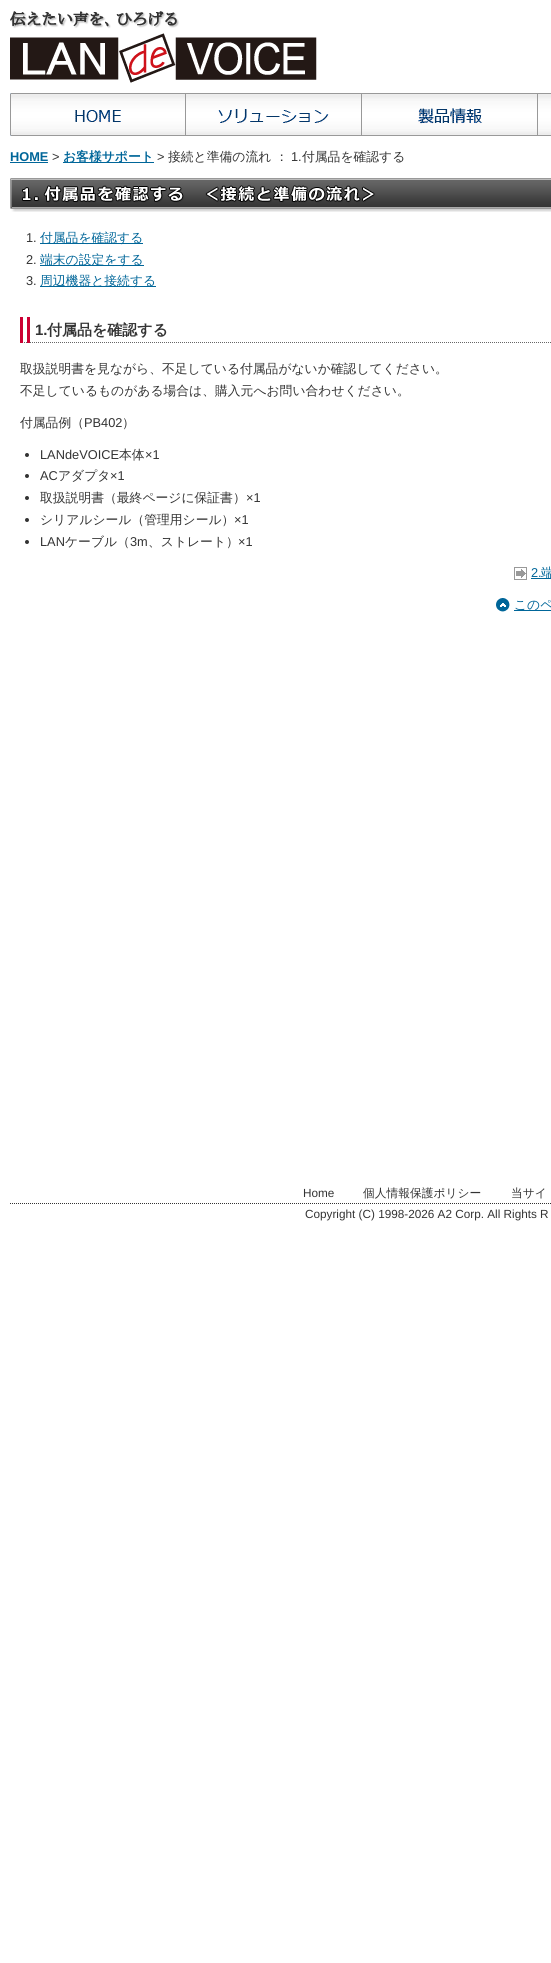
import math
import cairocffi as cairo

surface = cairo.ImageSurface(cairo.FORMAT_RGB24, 551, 1963)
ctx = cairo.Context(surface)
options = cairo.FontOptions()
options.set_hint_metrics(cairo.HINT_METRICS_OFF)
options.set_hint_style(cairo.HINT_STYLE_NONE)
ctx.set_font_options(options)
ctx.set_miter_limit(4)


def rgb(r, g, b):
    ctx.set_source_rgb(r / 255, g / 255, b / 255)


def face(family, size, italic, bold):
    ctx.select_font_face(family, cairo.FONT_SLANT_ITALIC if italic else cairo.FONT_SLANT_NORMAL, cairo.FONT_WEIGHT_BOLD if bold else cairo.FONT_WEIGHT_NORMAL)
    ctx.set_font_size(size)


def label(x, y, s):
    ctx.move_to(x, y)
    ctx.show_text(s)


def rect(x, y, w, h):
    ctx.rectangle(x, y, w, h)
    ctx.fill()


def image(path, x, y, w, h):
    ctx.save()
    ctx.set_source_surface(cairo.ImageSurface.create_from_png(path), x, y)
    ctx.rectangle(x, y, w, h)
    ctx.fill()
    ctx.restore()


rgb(255, 255, 255)
ctx.paint()
image('image0.png', 10, 11, 307, 72)
image('image1.png', 10, 93, 541, 43)
face('Liberation Sans', 12.8, 0, 1)
rgb(0, 102, 153)
label(10, 161, 'HOME')
rect(10, 162, 38, 1)
face('Liberation Sans', 12.8, 0, 0)
rgb(51, 51, 51)
label(52, 161, '>')
rgb(0, 102, 153)
rect(63, 162, 91, 1)
face('WenQuanYi Zen Hei', 12.8, 0, 1)
label(63, 161, 'お客様サポート')
face('Liberation Sans', 12.8, 0, 0)
rgb(51, 51, 51)
label(157, 161, '>')
face('WenQuanYi Zen Hei Medium', 12.8, 0, 0)
label(168, 161, '接続と準備の流れ ：')
face('Liberation Sans', 12.8, 0, 0)
label(291, 161, '1.')
face('WenQuanYi Zen Hei Medium', 12.8, 0, 0)
label(302, 161, '付属品を確認する')
image('image2.png', 10, 178, 541, 34)
face('Liberation Sans', 12.8, 0, 0)
label(26, 242, '1.')
rgb(0, 102, 153)
rect(40, 243, 103, 1)
face('WenQuanYi Zen Hei Medium', 12.8, 0, 0)
label(40, 242, '付属品を確認する')
face('Liberation Sans', 12.8, 0, 0)
rgb(51, 51, 51)
label(26, 264, '2.')
rgb(0, 102, 153)
rect(40, 265, 104, 1)
face('WenQuanYi Zen Hei Medium', 12.8, 0, 0)
label(40, 264, '端末の設定をする')
face('Liberation Sans', 12.8, 0, 0)
rgb(51, 51, 51)
label(26, 285, '3.')
rgb(0, 102, 153)
rect(40, 286, 116, 1)
face('WenQuanYi Zen Hei Medium', 12.8, 0, 0)
label(40, 285, '周辺機器と接続する')
ctx.new_path()
ctx.move_to(20, 342.5)
ctx.line_to(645, 342.5)
rgb(102, 102, 102)
ctx.set_line_width(1)
ctx.set_dash([1, 1])
ctx.stroke()
rgb(204, 0, 51)
rect(20, 317, 3, 26)
rect(27, 317, 3, 26)
face('Liberation Sans', 15, 0, 1)
rgb(51, 51, 51)
label(35, 335, '1.')
face('WenQuanYi Zen Hei', 15, 0, 1)
label(47, 335, '付属品を確認する')
face('WenQuanYi Zen Hei Medium', 12.8, 0, 0)
label(20, 373, '取扱説明書を見ながら、不足している付属品がないか確認してください。')
label(20, 395, '不足しているものがある場合は、購入元へお問い合わせください。')
label(20, 427, '付属品例（')
face('Liberation Sans', 12.8, 0, 0)
label(84, 427, 'PB402')
face('WenQuanYi Zen Hei Medium', 12.8, 0, 0)
label(122, 427, '）')
ctx.new_path()
ctx.arc(27, 455, 2, 0, 2 * math.pi)
ctx.fill()
face('Liberation Sans', 12.8, 0, 0)
label(40, 459, 'LANdeVOICE')
face('WenQuanYi Zen Hei Medium', 12.8, 0, 0)
label(119, 459, '本体')
face('Liberation Sans', 12.8, 0, 0)
label(145, 459, '×1')
ctx.new_path()
ctx.arc(27, 476, 2, 0, 2 * math.pi)
ctx.fill()
label(40, 480, 'AC')
face('WenQuanYi Zen Hei Medium', 12.8, 0, 0)
label(58, 480, 'アダプタ')
face('Liberation Sans', 12.8, 0, 0)
label(110, 480, '×1')
ctx.new_path()
ctx.arc(27, 498, 2, 0, 2 * math.pi)
ctx.fill()
face('WenQuanYi Zen Hei Medium', 12.8, 0, 0)
label(40, 502, '取扱説明書（最終ページに保証書）')
face('Liberation Sans', 12.8, 0, 0)
label(246, 502, '×1')
ctx.new_path()
ctx.arc(27, 520, 2, 0, 2 * math.pi)
ctx.fill()
face('WenQuanYi Zen Hei Medium', 12.8, 0, 0)
label(40, 524, 'シリアルシール（管理用シール）')
face('Liberation Sans', 12.8, 0, 0)
label(234, 524, '×1')
ctx.new_path()
ctx.arc(27, 542, 2, 0, 2 * math.pi)
ctx.fill()
label(40, 546, 'LAN')
face('WenQuanYi Zen Hei Medium', 12.8, 0, 0)
label(65, 546, 'ケーブル（')
face('Liberation Sans', 12.8, 0, 0)
label(130, 546, '3m')
face('WenQuanYi Zen Hei Medium', 12.8, 0, 0)
label(148, 546, '、ストレート）')
face('Liberation Sans', 12.8, 0, 0)
label(238, 546, '×1')
image('image3.png', 514, 567, 13, 13)
rgb(0, 102, 153)
label(531, 577, '2.')
rect(531, 578, 20, 1)
face('WenQuanYi Zen Hei Medium', 12.8, 0, 0)
label(541, 577, '端')
image('image4.png', 496, 598, 14, 14)
rect(514, 610, 37, 1)
label(514, 609, 'このペ')
face('Liberation Sans', 11.75, 0, 0)
rgb(51, 51, 51)
label(303, 1197, 'Home')
face('WenQuanYi Zen Hei Medium', 11.75, 0, 0)
label(363, 1197, '個人情報保護ポリシー')
label(511, 1197, '当サイ')
ctx.new_path()
ctx.move_to(10, 1203.5)
ctx.line_to(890, 1203.5)
ctx.stroke()
face('Liberation Sans', 11.75, 0, 0)
label(305, 1218, 'Copyright (C) 1998-2026 A2 Corp. All Rights R')
surface.write_to_png('render.png')
